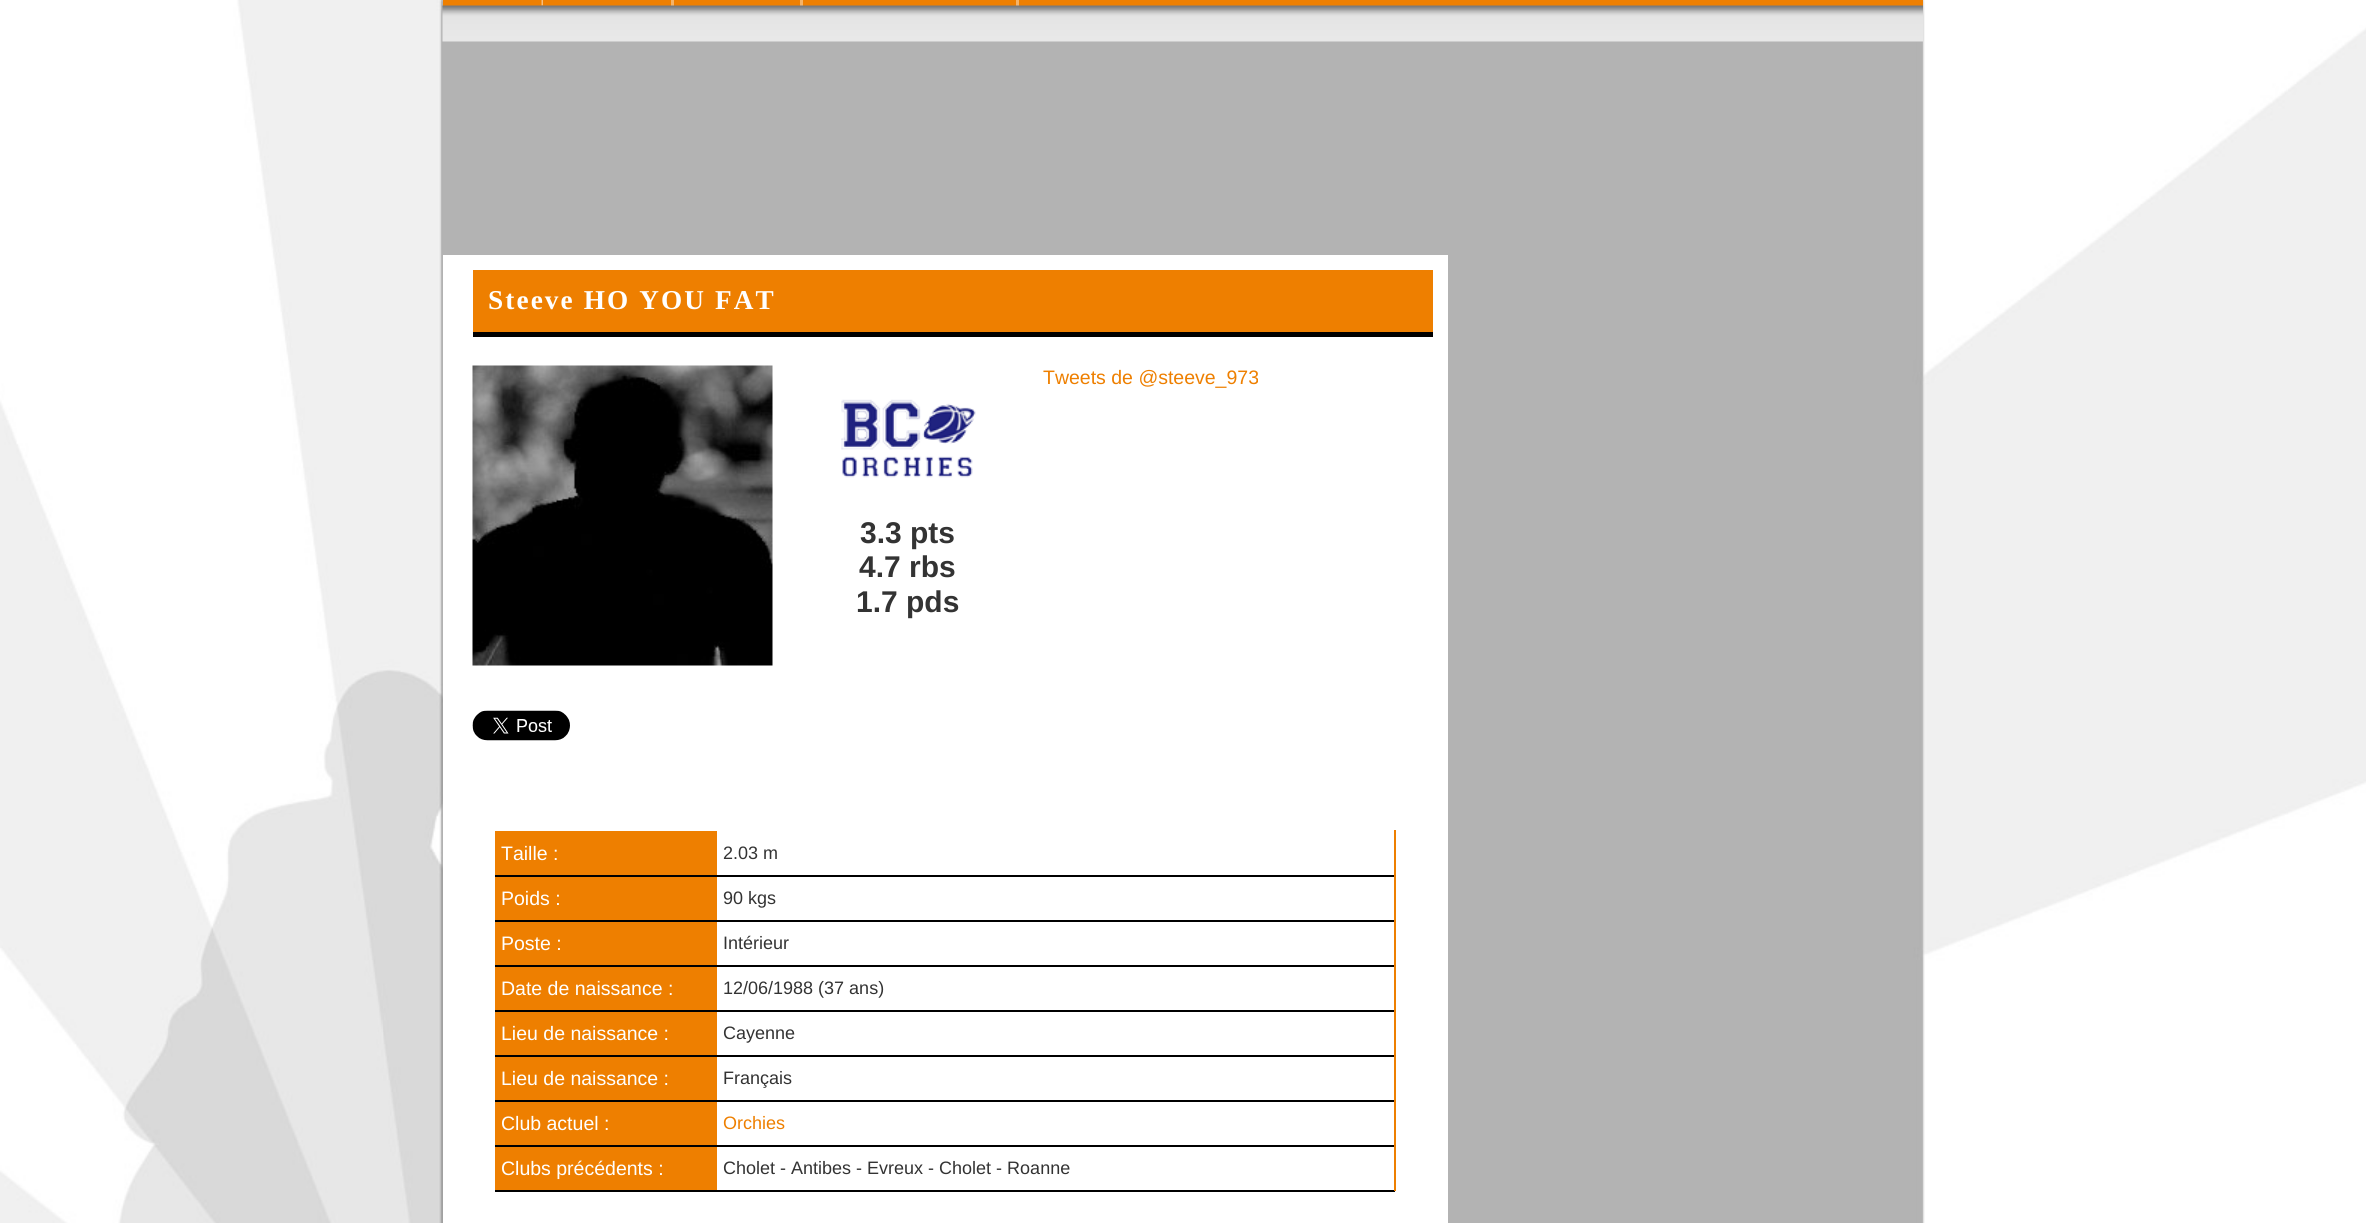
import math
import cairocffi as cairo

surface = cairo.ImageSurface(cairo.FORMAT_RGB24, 2366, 1223)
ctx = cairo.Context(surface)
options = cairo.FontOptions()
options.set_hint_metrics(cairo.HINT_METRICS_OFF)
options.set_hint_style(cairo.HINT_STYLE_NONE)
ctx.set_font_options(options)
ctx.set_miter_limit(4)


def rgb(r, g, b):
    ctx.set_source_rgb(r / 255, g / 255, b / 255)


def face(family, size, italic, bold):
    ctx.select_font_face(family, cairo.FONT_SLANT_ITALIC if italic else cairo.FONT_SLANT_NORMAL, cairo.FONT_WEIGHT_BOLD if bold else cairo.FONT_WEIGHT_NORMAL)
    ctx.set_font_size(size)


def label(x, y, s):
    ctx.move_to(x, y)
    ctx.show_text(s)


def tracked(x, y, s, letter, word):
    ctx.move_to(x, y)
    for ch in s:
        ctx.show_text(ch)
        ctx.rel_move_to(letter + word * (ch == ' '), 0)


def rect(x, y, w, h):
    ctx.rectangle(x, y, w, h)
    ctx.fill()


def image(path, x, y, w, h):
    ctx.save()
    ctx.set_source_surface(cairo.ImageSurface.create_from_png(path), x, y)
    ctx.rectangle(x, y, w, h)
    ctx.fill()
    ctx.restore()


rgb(255, 255, 255)
ctx.paint()
image('image0.png', 0, 0, 2366, 1223)
rgb(238, 127, 0)
rect(443, 0, 1480, 6)
image('image1.png', 541, 0, 2, 6)
rgb(245, 179, 104)
rect(671, 0, 3, 6)
rect(800, 0, 3, 6)
rect(1016, 0, 3, 6)
image('image2.png', 442, 5, 1481, 37)
rgb(255, 255, 255)
rect(443, 255, 1005, 968)
rgb(238, 127, 0)
rect(473, 270, 960, 62)
rgb(0, 0, 0)
rect(473, 332, 960, 5)
face('Liberation Serif', 27.25, 0, 1)
rgb(255, 255, 255)
tracked(488, 309, 'Steeve HO YOU FAT', 2.1, 0)
image('image3.png', 472, 365, 301, 301)
image('image4.png', 472, 710, 98, 31)
face('Liberation Sans', 19.5, 0, 0)
rgb(238, 127, 0)
label(1043, 384, 'Tweets de @steeve_973')
image('image5.png', 841, 399, 135, 79)
face('Liberation Sans', 30, 0, 1)
rgb(51, 51, 51)
label(860, 543, '3.3 pts')
label(859, 577, '4.7 rbs')
label(856, 612, '1.7 pds')
rgb(0, 0, 0)
rect(495, 875, 900, 2)
rgb(238, 127, 0)
rect(495, 831, 222, 44)
face('Liberation Sans', 19.5, 0, 0)
rgb(255, 255, 255)
label(501, 860, 'Taille :')
face('Liberation Sans', 18, 0, 0)
rgb(51, 51, 51)
label(723, 859, '2.03 m')
rgb(0, 0, 0)
rect(495, 920, 900, 2)
rgb(238, 127, 0)
rect(495, 877, 222, 43)
face('Liberation Sans', 19.5, 0, 0)
rgb(255, 255, 255)
label(501, 905, 'Poids :')
face('Liberation Sans', 18, 0, 0)
rgb(51, 51, 51)
label(723, 904, '90 kgs')
rgb(0, 0, 0)
rect(495, 965, 900, 2)
rgb(238, 127, 0)
rect(495, 922, 222, 43)
face('Liberation Sans', 19.5, 0, 0)
rgb(255, 255, 255)
label(501, 950, 'Poste :')
face('Liberation Sans', 18, 0, 0)
rgb(51, 51, 51)
label(723, 949, 'Intérieur')
rgb(0, 0, 0)
rect(495, 1010, 900, 2)
rgb(238, 127, 0)
rect(495, 967, 222, 43)
face('Liberation Sans', 19.5, 0, 0)
rgb(255, 255, 255)
label(501, 995, 'Date de naissance :')
face('Liberation Sans', 18, 0, 0)
rgb(51, 51, 51)
label(723, 994, '12/06/1988 (37 ans)')
rgb(0, 0, 0)
rect(495, 1055, 900, 2)
rgb(238, 127, 0)
rect(495, 1012, 222, 43)
face('Liberation Sans', 19.5, 0, 0)
rgb(255, 255, 255)
label(501, 1040, 'Lieu de naissance :')
face('Liberation Sans', 18, 0, 0)
rgb(51, 51, 51)
label(723, 1039, 'Cayenne')
rgb(0, 0, 0)
rect(495, 1100, 900, 2)
rgb(238, 127, 0)
rect(495, 1057, 222, 43)
face('Liberation Sans', 19.5, 0, 0)
rgb(255, 255, 255)
label(501, 1085, 'Lieu de naissance :')
face('Liberation Sans', 18, 0, 0)
rgb(51, 51, 51)
label(723, 1084, 'Français')
rgb(0, 0, 0)
rect(495, 1145, 900, 2)
rgb(238, 127, 0)
rect(495, 1102, 222, 43)
face('Liberation Sans', 19.5, 0, 0)
rgb(255, 255, 255)
label(501, 1130, 'Club actuel :')
face('Liberation Sans', 18, 0, 0)
rgb(238, 127, 0)
label(723, 1129, 'Orchies')
rgb(0, 0, 0)
rect(495, 1190, 900, 2)
rgb(238, 127, 0)
rect(495, 1147, 222, 43)
face('Liberation Sans', 19.5, 0, 0)
rgb(255, 255, 255)
label(501, 1175, 'Clubs précédents :')
rgb(238, 127, 0)
rect(1394, 830, 2, 361)
face('Liberation Sans', 18, 0, 0)
rgb(51, 51, 51)
label(723, 1174, 'Cholet - Antibes - Evreux - Cholet - Roanne')
surface.write_to_png('render.png')
